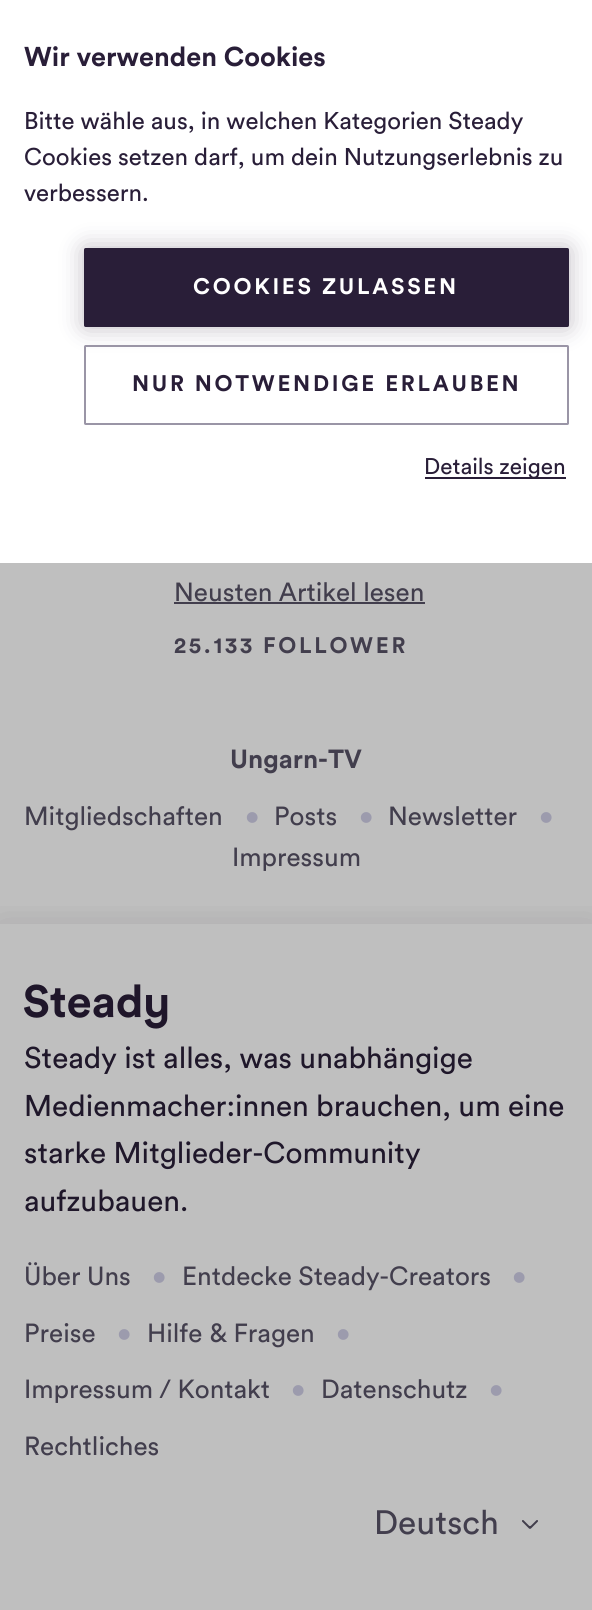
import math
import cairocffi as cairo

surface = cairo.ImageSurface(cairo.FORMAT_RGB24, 592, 1610)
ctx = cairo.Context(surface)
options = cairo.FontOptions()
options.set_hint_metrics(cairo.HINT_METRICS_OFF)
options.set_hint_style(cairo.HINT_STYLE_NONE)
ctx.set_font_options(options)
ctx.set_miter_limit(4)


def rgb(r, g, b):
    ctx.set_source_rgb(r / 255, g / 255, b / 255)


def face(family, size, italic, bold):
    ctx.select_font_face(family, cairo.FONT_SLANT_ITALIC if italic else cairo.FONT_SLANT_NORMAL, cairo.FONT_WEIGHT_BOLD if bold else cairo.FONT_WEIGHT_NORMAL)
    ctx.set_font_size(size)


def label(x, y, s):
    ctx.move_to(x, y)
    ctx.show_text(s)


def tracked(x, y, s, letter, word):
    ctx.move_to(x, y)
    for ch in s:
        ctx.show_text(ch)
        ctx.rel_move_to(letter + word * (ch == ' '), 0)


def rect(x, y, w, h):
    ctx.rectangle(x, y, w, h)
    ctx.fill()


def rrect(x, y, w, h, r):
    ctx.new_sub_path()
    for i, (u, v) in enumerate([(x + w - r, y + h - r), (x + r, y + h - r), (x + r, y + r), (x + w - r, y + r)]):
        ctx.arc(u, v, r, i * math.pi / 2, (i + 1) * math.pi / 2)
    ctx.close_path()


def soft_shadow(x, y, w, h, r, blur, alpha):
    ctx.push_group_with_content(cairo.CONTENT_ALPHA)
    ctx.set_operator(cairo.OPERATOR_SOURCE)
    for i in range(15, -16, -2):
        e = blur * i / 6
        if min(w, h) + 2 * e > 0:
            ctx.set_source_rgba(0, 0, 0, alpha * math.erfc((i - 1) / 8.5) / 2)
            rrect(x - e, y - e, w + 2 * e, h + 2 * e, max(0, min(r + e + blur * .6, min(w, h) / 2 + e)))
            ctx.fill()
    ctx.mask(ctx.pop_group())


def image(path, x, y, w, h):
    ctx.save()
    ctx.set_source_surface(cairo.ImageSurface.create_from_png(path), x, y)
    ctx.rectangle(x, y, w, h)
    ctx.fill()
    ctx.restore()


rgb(191, 191, 191)
ctx.paint()
rgb(255, 255, 255)
rect(0, 0, 592, 563)
face('Circular', 27, 0, 1)
rgb(41, 30, 56)
label(24, 66, 'Wir verwenden Cookies')
face('Circular', 24, 0, 0)
label(24, 129, 'Bitte wähle aus, in welchen Kategorien Steady')
label(24, 165, 'Cookies setzen darf, um dein Nutzungserlebnis zu')
label(24, 201, 'verbessern.')
rgb(41, 30, 56)
soft_shadow(84, 248, 485, 79, 1.5, 12, 0.3)
rgb(41, 30, 56)
rrect(85, 249, 483, 77, 0.5)
ctx.fill_preserve()
ctx.stroke()
face('Circular', 22.3, 0, 1)
rgb(255, 255, 255)
tracked(193, 294, 'COOKIES ZULASSEN', 2.7, 0)
rrect(85, 346, 483, 78, 0.5)
rgb(154, 149, 166)
ctx.stroke()
rgb(41, 30, 56)
tracked(132, 391, 'NUR NOTWENDIGE ERLAUBEN', 2.7, 0)
rect(425, 477, 141, 2)
face('Circular', 22.5, 0, 0)
label(424, 474, 'Details zeigen')
face('Circular', 26, 0, 0)
rgb(66, 62, 77)
label(174, 601, 'Neusten Artikel lesen')
rect(174, 602, 251, 2)
face('Circular', 22.3, 0, 1)
tracked(174, 653, '25.133 FOLLOWER', 2.7, 0)
face('Circular', 26, 0, 1)
label(230, 768, 'Ungarn-TV')
face('Circular', 26, 0, 0)
label(24, 825, 'Mitgliedschaften')
rgb(156, 155, 173)
label(245, 825, '•')
rgb(66, 62, 77)
label(274, 825, 'Posts')
rgb(156, 155, 173)
label(359, 825, '•')
rgb(66, 62, 77)
label(388, 825, 'Newsletter')
rgb(156, 155, 173)
label(539, 825, '•')
ctx.save()
ctx.rectangle(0, 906, 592, 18)
ctx.clip()
rgb(31, 23, 42)
soft_shadow(0, 927, 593, 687, 0, 19, 0.15)
ctx.restore()
rgb(66, 62, 77)
label(232, 866, 'Impressum')
image('image0.png', 24, 984, 144, 45)
face('Circular', 29.7, 0, 0)
rgb(31, 23, 42)
label(24, 1068, 'Steady ist alles, was unabhängige')
label(24, 1116, 'Medienmacher:innen brauchen, um eine')
label(24, 1163, 'starke Mitglieder-Community')
label(24, 1211, 'aufzubauen.')
face('Circular', 26, 0, 0)
rgb(66, 62, 77)
label(24, 1285, 'Über Uns')
rgb(156, 155, 173)
label(152, 1285, '•')
rgb(66, 62, 77)
label(182, 1285, 'Entdecke Steady-Creators')
rgb(156, 155, 173)
label(512, 1285, '•')
rgb(66, 62, 77)
label(24, 1342, 'Preise')
rgb(156, 155, 173)
label(117, 1342, '•')
rgb(66, 62, 77)
label(147, 1342, 'Hilfe & Fragen')
rgb(156, 155, 173)
label(336, 1342, '•')
rgb(66, 62, 77)
label(24, 1398, 'Impressum / Kontakt')
rgb(156, 155, 173)
label(291, 1398, '•')
rgb(66, 62, 77)
label(321, 1398, 'Datenschutz')
rgb(156, 155, 173)
label(489, 1398, '•')
rgb(66, 62, 77)
label(24, 1455, 'Rechtliches')
face('Circular', 33.5, 0, 0)
label(374, 1534, 'Deutsch')
image('image1.png', 522, 1520, 16, 9)
surface.write_to_png('render.png')
